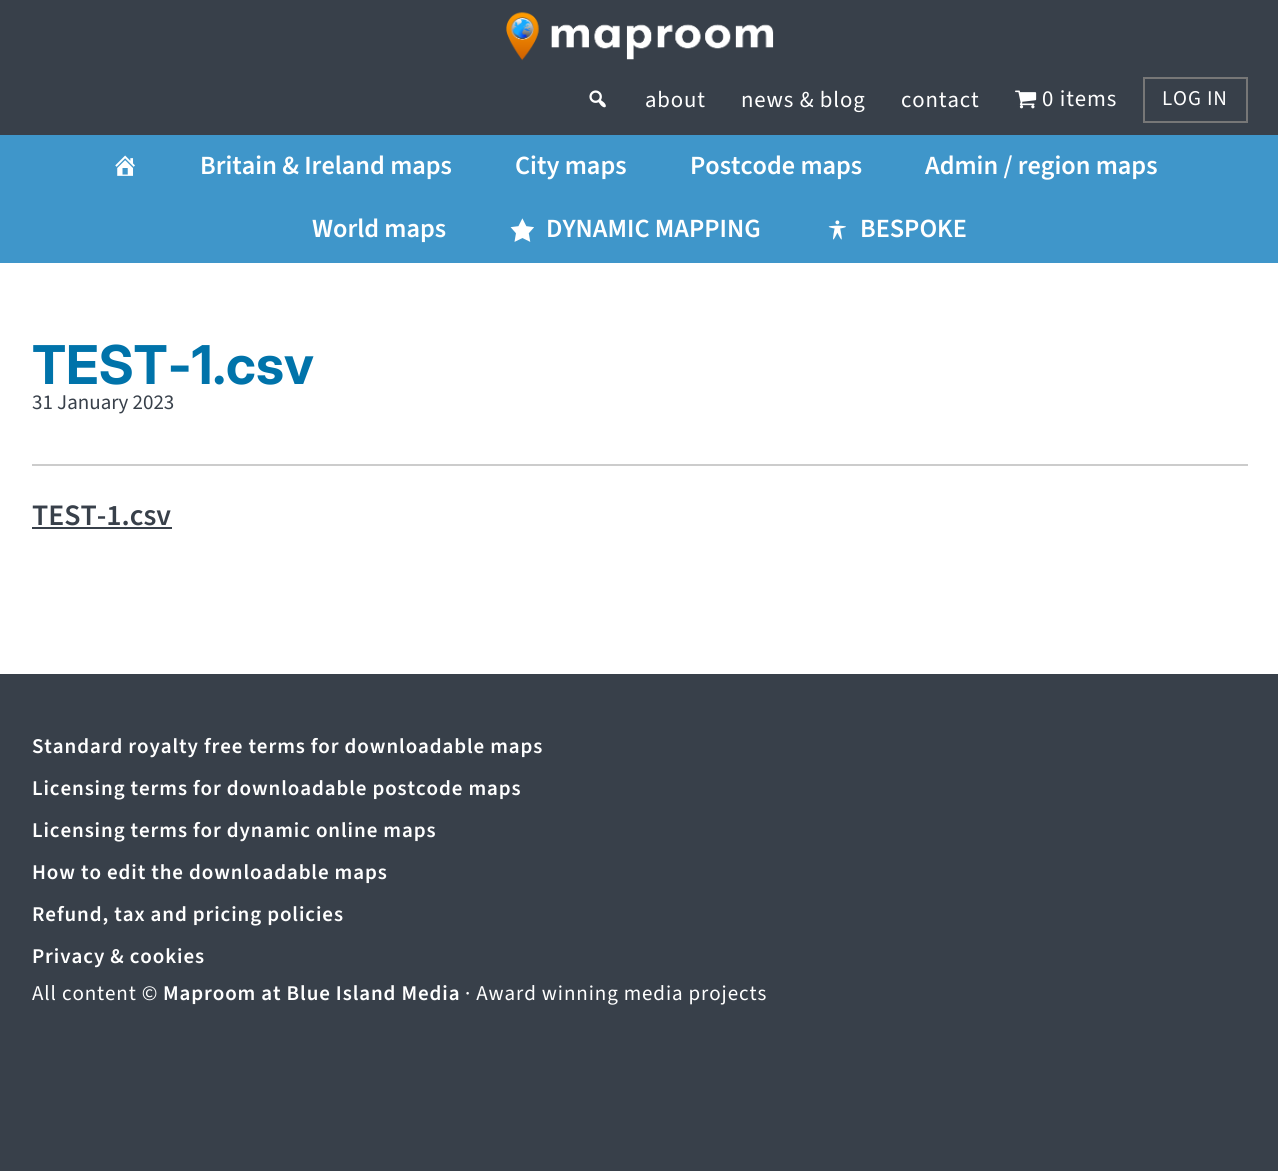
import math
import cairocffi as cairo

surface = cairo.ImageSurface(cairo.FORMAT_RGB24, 1278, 1171)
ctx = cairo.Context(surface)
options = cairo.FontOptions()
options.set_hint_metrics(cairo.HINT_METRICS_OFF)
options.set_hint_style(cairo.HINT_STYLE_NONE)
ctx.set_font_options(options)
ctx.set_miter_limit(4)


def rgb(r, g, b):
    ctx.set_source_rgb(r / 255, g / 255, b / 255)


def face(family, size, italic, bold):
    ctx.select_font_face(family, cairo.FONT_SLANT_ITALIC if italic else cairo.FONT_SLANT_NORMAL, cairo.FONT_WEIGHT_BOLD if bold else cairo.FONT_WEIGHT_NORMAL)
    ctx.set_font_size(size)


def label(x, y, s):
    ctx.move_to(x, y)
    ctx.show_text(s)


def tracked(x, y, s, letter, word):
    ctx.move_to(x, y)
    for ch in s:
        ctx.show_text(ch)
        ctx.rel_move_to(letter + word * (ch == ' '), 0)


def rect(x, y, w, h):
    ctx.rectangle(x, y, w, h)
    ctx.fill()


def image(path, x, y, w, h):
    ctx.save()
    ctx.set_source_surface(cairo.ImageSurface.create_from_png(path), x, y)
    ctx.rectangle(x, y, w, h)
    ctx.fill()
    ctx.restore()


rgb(56, 64, 74)
ctx.paint()
image('image0.png', 506, 12, 268, 49)
image('image1.png', 589, 90, 17, 18)
face('Source Sans 3', 22.75, 0, 0)
rgb(255, 255, 255)
tracked(645, 107, 'about', 0.9, 0)
tracked(741, 107, 'news & blog', 0.9, 0)
tracked(901, 107, 'contact', 0.9, 0)
image('image2.png', 1015, 90, 22, 19)
tracked(1042, 106, '0 items', 0.9, 0)
ctx.rectangle(1144, 78, 103, 44)
rgb(119, 119, 119)
ctx.stroke()
face('Source Sans 3', 21, 0, 0)
rgb(255, 255, 255)
tracked(1162, 105, 'LOG IN', 0.9, 0)
rgb(63, 150, 202)
rect(0, 135, 1278, 128)
image('image3.png', 115, 155, 20, 21)
face('Source Sans 3 SemiBold', 26.25, 0, 0)
rgb(255, 255, 255)
label(200, 174, 'Britain & Ireland maps')
label(515, 174, 'City maps')
label(690, 174, 'Postcode maps')
label(925, 174, 'Admin / region maps')
label(312, 237, 'World maps')
image('image4.png', 510, 218, 24, 24)
label(546, 237, 'DYNAMIC MAPPING')
image('image5.png', 828, 220, 18, 20)
label(860, 237, 'BESPOKE')
rect(0, 263, 1278, 411)
face('Inter', 53.5, 0, 1)
rgb(0, 115, 170)
label(32, 384, 'TEST-1.csv')
rgb(204, 204, 204)
rect(32, 464, 1216, 2)
face('Source Sans 3', 21, 0, 0)
rgb(56, 64, 74)
label(32, 409, '31 January 2023')
face('Source Sans 3 SemiBold', 29.75, 0, 0)
label(32, 525, 'TEST-1.csv')
rect(32, 527, 140, 2)
face('Source Sans 3 SemiBold', 21, 0, 0)
rgb(255, 255, 255)
tracked(32, 753, 'Standard royalty free terms for downloadable maps', 0.9, 0)
tracked(32, 795, 'Licensing terms for downloadable postcode maps', 0.9, 0)
tracked(32, 837, 'Licensing terms for dynamic online maps', 0.9, 0)
tracked(32, 879, 'How to edit the downloadable maps', 0.9, 0)
tracked(32, 921, 'Refund, tax and pricing policies', 0.9, 0)
tracked(32, 963, 'Privacy & cookies', 0.9, 0)
face('Source Sans 3', 21, 0, 0)
tracked(32, 1000, 'All content ©', 0.9, 0)
face('Source Sans 3 SemiBold', 21, 0, 0)
tracked(163, 1000, 'Maproom at Blue Island Media', 0.9, 0)
face('Source Sans 3', 21, 0, 0)
tracked(465, 1000, '· Award winning media projects', 0.9, 0)
surface.write_to_png('render.png')
